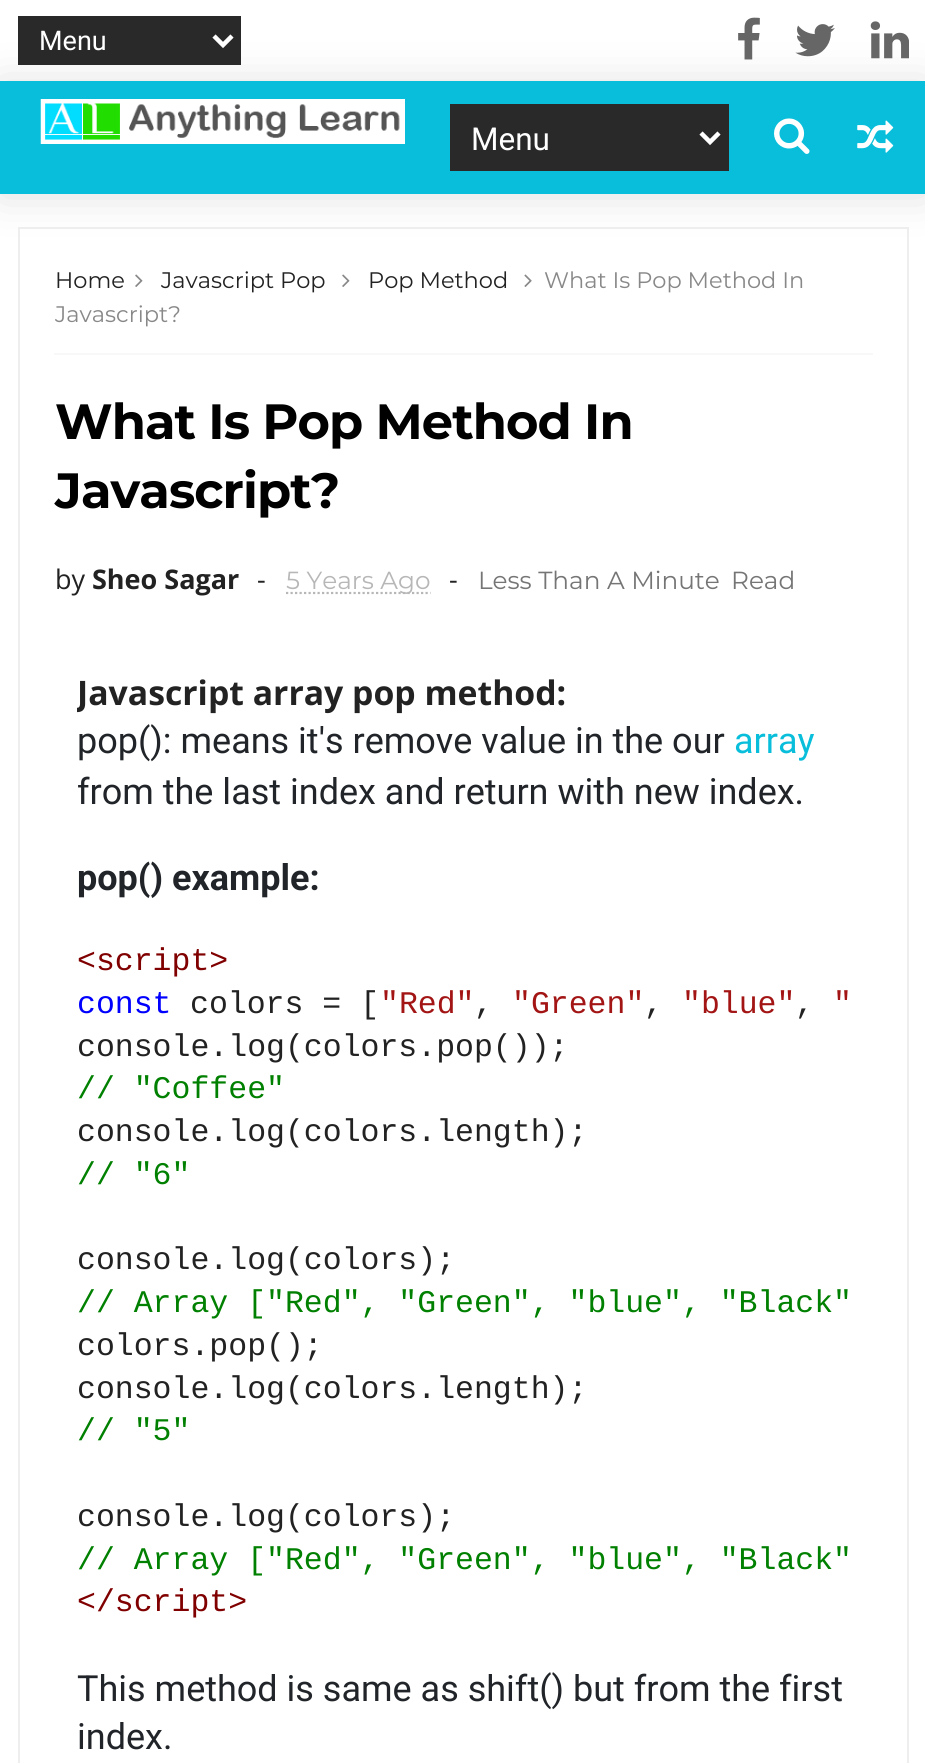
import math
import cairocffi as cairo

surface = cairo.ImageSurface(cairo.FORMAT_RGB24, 925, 1763)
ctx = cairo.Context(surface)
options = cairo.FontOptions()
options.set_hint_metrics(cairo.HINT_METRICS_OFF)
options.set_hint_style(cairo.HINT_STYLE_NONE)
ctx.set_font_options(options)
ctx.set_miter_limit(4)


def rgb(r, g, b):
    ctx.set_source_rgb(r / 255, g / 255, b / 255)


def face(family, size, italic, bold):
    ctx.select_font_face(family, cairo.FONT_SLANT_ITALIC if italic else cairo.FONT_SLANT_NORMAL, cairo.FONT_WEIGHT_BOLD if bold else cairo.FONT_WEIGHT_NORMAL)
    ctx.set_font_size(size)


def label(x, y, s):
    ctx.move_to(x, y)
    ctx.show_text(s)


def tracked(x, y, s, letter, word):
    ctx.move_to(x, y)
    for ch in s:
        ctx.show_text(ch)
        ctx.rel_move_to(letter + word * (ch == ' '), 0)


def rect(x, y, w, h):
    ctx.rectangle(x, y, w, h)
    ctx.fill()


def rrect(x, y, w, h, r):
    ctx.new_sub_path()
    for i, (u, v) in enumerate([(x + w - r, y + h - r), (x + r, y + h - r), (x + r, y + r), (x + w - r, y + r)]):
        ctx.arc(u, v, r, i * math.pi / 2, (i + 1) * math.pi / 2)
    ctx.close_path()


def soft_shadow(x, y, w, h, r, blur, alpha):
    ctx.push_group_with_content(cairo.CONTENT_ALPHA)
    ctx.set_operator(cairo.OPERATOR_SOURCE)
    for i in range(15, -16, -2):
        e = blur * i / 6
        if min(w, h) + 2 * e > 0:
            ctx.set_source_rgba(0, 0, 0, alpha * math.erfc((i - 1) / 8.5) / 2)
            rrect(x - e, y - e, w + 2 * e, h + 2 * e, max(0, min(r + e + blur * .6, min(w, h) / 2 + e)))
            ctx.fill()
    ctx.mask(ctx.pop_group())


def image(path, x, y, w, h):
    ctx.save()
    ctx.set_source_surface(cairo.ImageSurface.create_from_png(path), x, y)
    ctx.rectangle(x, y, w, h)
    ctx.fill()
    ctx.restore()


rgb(255, 255, 255)
ctx.paint()
rgb(0, 0, 0)
soft_shadow(0, 83, 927, 113, 0, 22.5, 0.12)
rgb(41, 41, 41)
rect(18, 16, 223, 49)
ctx.new_path()
ctx.move_to(214, 36)
ctx.line_to(223, 45)
ctx.line_to(232, 36)
rgb(255, 255, 255)
ctx.set_line_width(4.5)
ctx.stroke()
face('Roboto', 27, 0, 0)
label(39, 50, 'Menu')
image('image0.png', 738, 17, 22, 43)
image('image1.png', 795, 24, 40, 33)
image('image2.png', 870, 21, 39, 38)
rgb(8, 190, 218)
rect(0, 81, 925, 113)
image('image3.png', 40, 99, 365, 45)
rgb(41, 41, 41)
rect(450, 104, 279, 67)
ctx.new_path()
ctx.move_to(701, 133)
ctx.line_to(710, 142)
ctx.line_to(719, 133)
rgb(255, 255, 255)
ctx.stroke()
face('Roboto', 31.5, 0, 0)
label(471, 150, 'Menu')
image('image4.png', 774, 118, 36, 36)
image('image5.png', 857, 120, 37, 33)
ctx.rectangle(19, 228, 889, 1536)
rgb(238, 238, 238)
ctx.set_line_width(2)
ctx.stroke()
face('Montserrat', 22.5, 0, 0)
rgb(34, 34, 34)
label(55, 288, 'Home')
image('image6.png', 135, 274, 8, 13)
label(161, 288, 'Javascript Pop')
image('image6.png', 342, 274, 8, 13)
label(368, 288, 'Pop Method')
image('image7.png', 524, 274, 8, 13)
rgb(136, 136, 136)
label(544, 288, 'What Is Pop Method In')
label(55, 322, 'Javascript?')
rgb(248, 248, 248)
rect(54, 353, 819, 2)
face('Montserrat', 49.5, 0, 1)
rgb(0, 0, 0)
tracked(55, 439, 'What Is Pop Method In', -0.9, 0)
tracked(55, 508, 'Javascript?', -0.9, 0)
face('Open Sans', 27, 0, 0)
rgb(34, 34, 34)
label(55, 589, 'by')
face('Open Sans', 27, 0, 1)
label(92, 589, 'Sheo Sagar')
face('Open Sans', 27, 0, 0)
label(257, 589, '-')
ctx.new_path()
ctx.move_to(286, 593)
ctx.line_to(430.5, 593)
rgb(183, 183, 183)
ctx.set_line_width(2.2)
ctx.set_dash([2.25, 2.25])
ctx.stroke()
face('Montserrat', 24.75, 0, 0)
label(286, 589, '5 Years Ago')
face('Open Sans', 27, 0, 0)
rgb(34, 34, 34)
label(449, 589, '-')
face('Montserrat', 24.75, 0, 0)
rgb(117, 117, 117)
label(478, 589, 'Less Than A Minute')
label(731, 589, 'Read')
ctx.save()
ctx.rectangle(77, 666, 774, 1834)
ctx.clip()
face('Open Sans', 33.75, 0, 1)
rgb(34, 34, 34)
label(77, 705, 'Javascript array pop method:')
ctx.restore()
face('Roboto', 36, 0, 0)
rgb(33, 37, 41)
label(77, 753, 'pop(): means it\'s remove value in the our')
rgb(8, 190, 218)
label(734, 753, 'array')
rgb(33, 37, 41)
label(77, 804, 'from the last index and return with new index.')
face('Roboto', 36, 0, 1)
label(77, 890, 'pop() example:')
face('Liberation Mono', 31.5, 0, 0)
rgb(128, 0, 0)
label(77, 970, '<script>')
rgb(0, 0, 255)
label(77, 1013, 'const')
rgb(34, 34, 34)
label(190, 1013, 'colors = [')
rgb(163, 21, 21)
label(380, 1013, '"Red"')
rgb(34, 34, 34)
label(474, 1013, ',')
rgb(163, 21, 21)
label(512, 1013, '"Green"')
rgb(34, 34, 34)
label(644, 1013, ',')
rgb(163, 21, 21)
label(682, 1013, '"blue"')
rgb(34, 34, 34)
label(795, 1013, ',')
rgb(163, 21, 21)
label(833, 1013, '"')
rgb(34, 34, 34)
label(77, 1056, 'console.log(colors.pop());')
rgb(0, 128, 0)
label(77, 1098, '// "Coffee"')
rgb(34, 34, 34)
label(77, 1141, 'console.log(colors.length);')
rgb(0, 128, 0)
label(77, 1184, '// "6"')
rgb(34, 34, 34)
label(77, 1269, 'console.log(colors);')
rgb(0, 128, 0)
label(77, 1312, '// Array ["Red", "Green", "blue", "Black"')
rgb(34, 34, 34)
label(77, 1355, 'colors.pop();')
label(77, 1398, 'console.log(colors.length);')
rgb(0, 128, 0)
label(77, 1440, '// "5"')
rgb(34, 34, 34)
label(77, 1526, 'console.log(colors);')
rgb(0, 128, 0)
label(77, 1569, '// Array ["Red", "Green", "blue", "Black"')
rgb(128, 0, 0)
label(77, 1611, '</script>')
face('Roboto', 36, 0, 0)
rgb(33, 37, 41)
label(77, 1701, 'This method is same as shift() but from the first')
label(77, 1749, 'index.')
surface.write_to_png('render.png')
